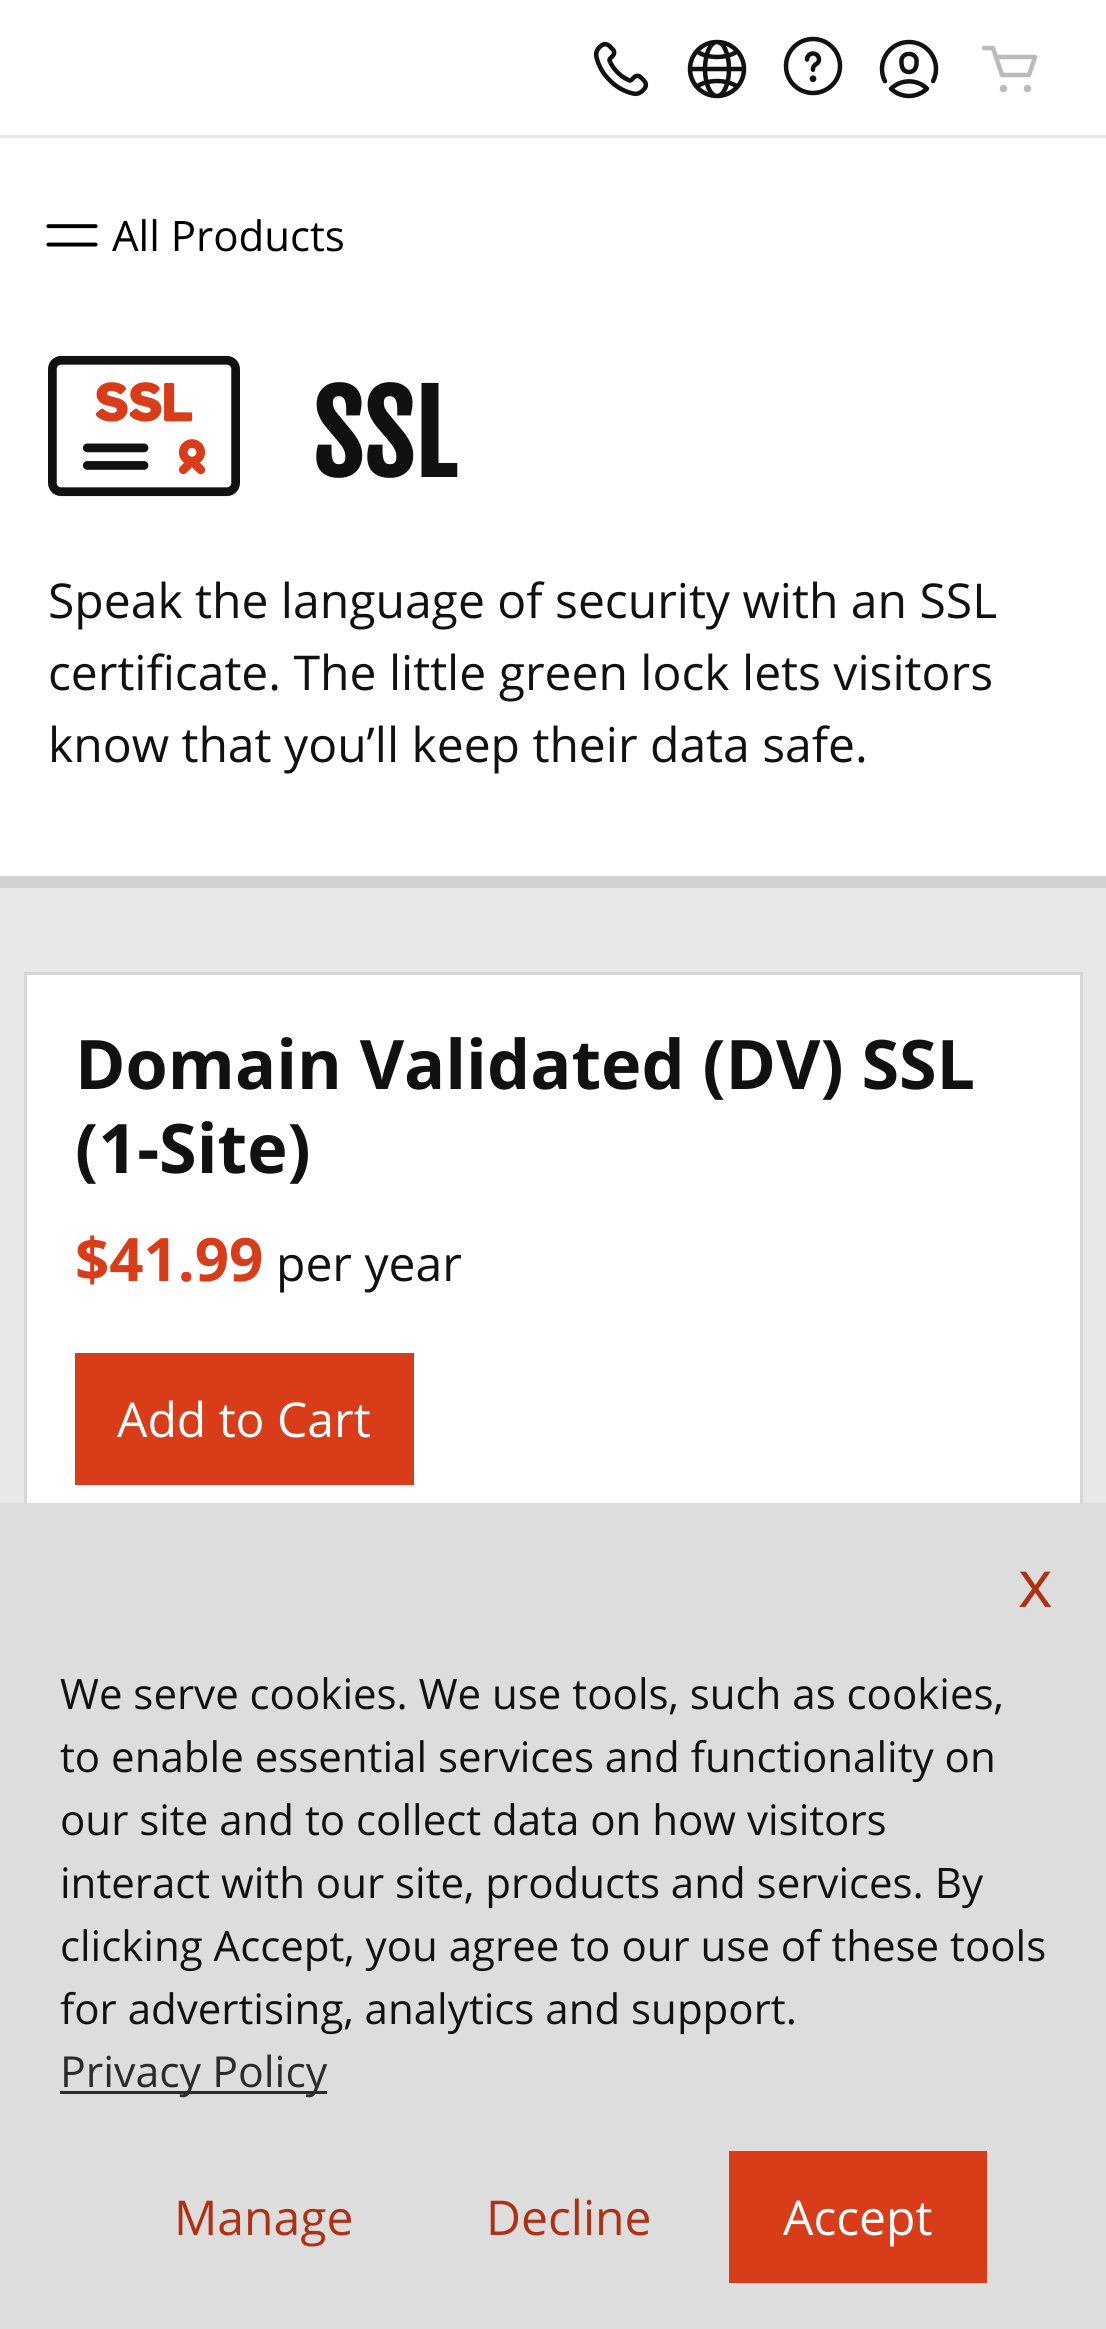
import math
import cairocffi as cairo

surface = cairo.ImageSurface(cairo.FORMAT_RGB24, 1106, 2329)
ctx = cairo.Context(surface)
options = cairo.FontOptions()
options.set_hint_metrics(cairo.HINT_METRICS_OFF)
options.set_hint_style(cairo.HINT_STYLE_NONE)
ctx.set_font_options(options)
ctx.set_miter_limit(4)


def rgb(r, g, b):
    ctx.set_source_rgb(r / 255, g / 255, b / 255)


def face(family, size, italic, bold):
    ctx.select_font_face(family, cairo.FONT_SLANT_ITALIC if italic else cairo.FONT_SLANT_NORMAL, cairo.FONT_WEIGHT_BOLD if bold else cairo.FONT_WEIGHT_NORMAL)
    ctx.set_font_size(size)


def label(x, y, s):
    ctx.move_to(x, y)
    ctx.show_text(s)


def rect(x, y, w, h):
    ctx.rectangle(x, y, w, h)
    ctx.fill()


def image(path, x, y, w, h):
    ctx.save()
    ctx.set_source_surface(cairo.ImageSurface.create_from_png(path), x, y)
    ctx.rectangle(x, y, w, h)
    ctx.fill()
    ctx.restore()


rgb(232, 232, 232)
ctx.paint()
rgb(255, 255, 255)
rect(0, 0, 1106, 135)
image('image0.png', 593, 41, 56, 56)
image('image1.png', 687, 39, 60, 60)
image('image2.png', 783, 36, 60, 60)
image('image3.png', 879, 39, 60, 60)
image('image4.png', 981, 45, 57, 48)
rect(0, 138, 1106, 738)
image('image5.png', 46, 224, 52, 23)
face('Open Sans', 42, 0, 0)
rgb(0, 0, 0)
label(112, 251, 'All Products')
rgb(209, 209, 209)
rect(0, 876, 1106, 12)
image('image6.png', 48, 355, 192, 142)
face('Fjalla One', 109, 0, 1)
rgb(17, 17, 17)
label(312, 477, 'SSL')
face('Open Sans', 48, 0, 0)
label(48, 618, 'Speak the language of security with an SSL')
label(48, 690, 'certificate. The little green lock lets visitors')
label(48, 762, 'know that you’ll keep their data safe.')
rgb(255, 255, 255)
rect(27, 975, 1053, 528)
ctx.rectangle(25.5, 973.5, 1056, 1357)
rgb(214, 214, 214)
ctx.set_line_width(3)
ctx.stroke()
face('Open Sans', 68.3, 0, 1)
rgb(17, 17, 17)
label(75, 1089, 'Domain Validated (DV) SSL')
label(75, 1173, '(1-Site)')
face('Open Sans', 60, 0, 1)
rgb(216, 60, 25)
label(75, 1281, '$41.99')
face('Open Sans', 48, 0, 0)
rgb(17, 17, 17)
label(276, 1281, 'per year')
rgb(216, 60, 25)
rect(75, 1353, 339, 132)
rgb(255, 255, 255)
label(117, 1437, 'Add to Cart')
rgb(221, 221, 221)
rect(0, 1503, 1106, 826)
face('Open Sans', 66, 0, 0)
rgb(175, 49, 20)
label(1018, 1607, 'x')
face('Open Sans', 42, 0, 0)
rgb(17, 17, 17)
label(60, 1709, 'We serve cookies. We use tools, such as cookies,')
label(60, 1772, 'to enable essential services and functionality on')
label(60, 1835, 'our site and to collect data on how visitors')
label(60, 1898, 'interact with our site, products and services. By')
label(60, 1961, 'clicking Accept, you agree to our use of these tools')
label(60, 2024, 'for advertising, analytics and support.')
rgb(43, 43, 43)
rect(60, 2091, 267, 3)
face('Open Sans', 42.75, 0, 0)
label(60, 2087, 'Privacy Policy')
face('Open Sans', 48, 0, 0)
rgb(175, 49, 20)
label(174, 2235, 'Manage')
label(486, 2235, 'Decline')
rgb(216, 60, 25)
rect(729, 2151, 258, 132)
rgb(255, 255, 255)
label(783, 2235, 'Accept')
surface.write_to_png('render.png')
